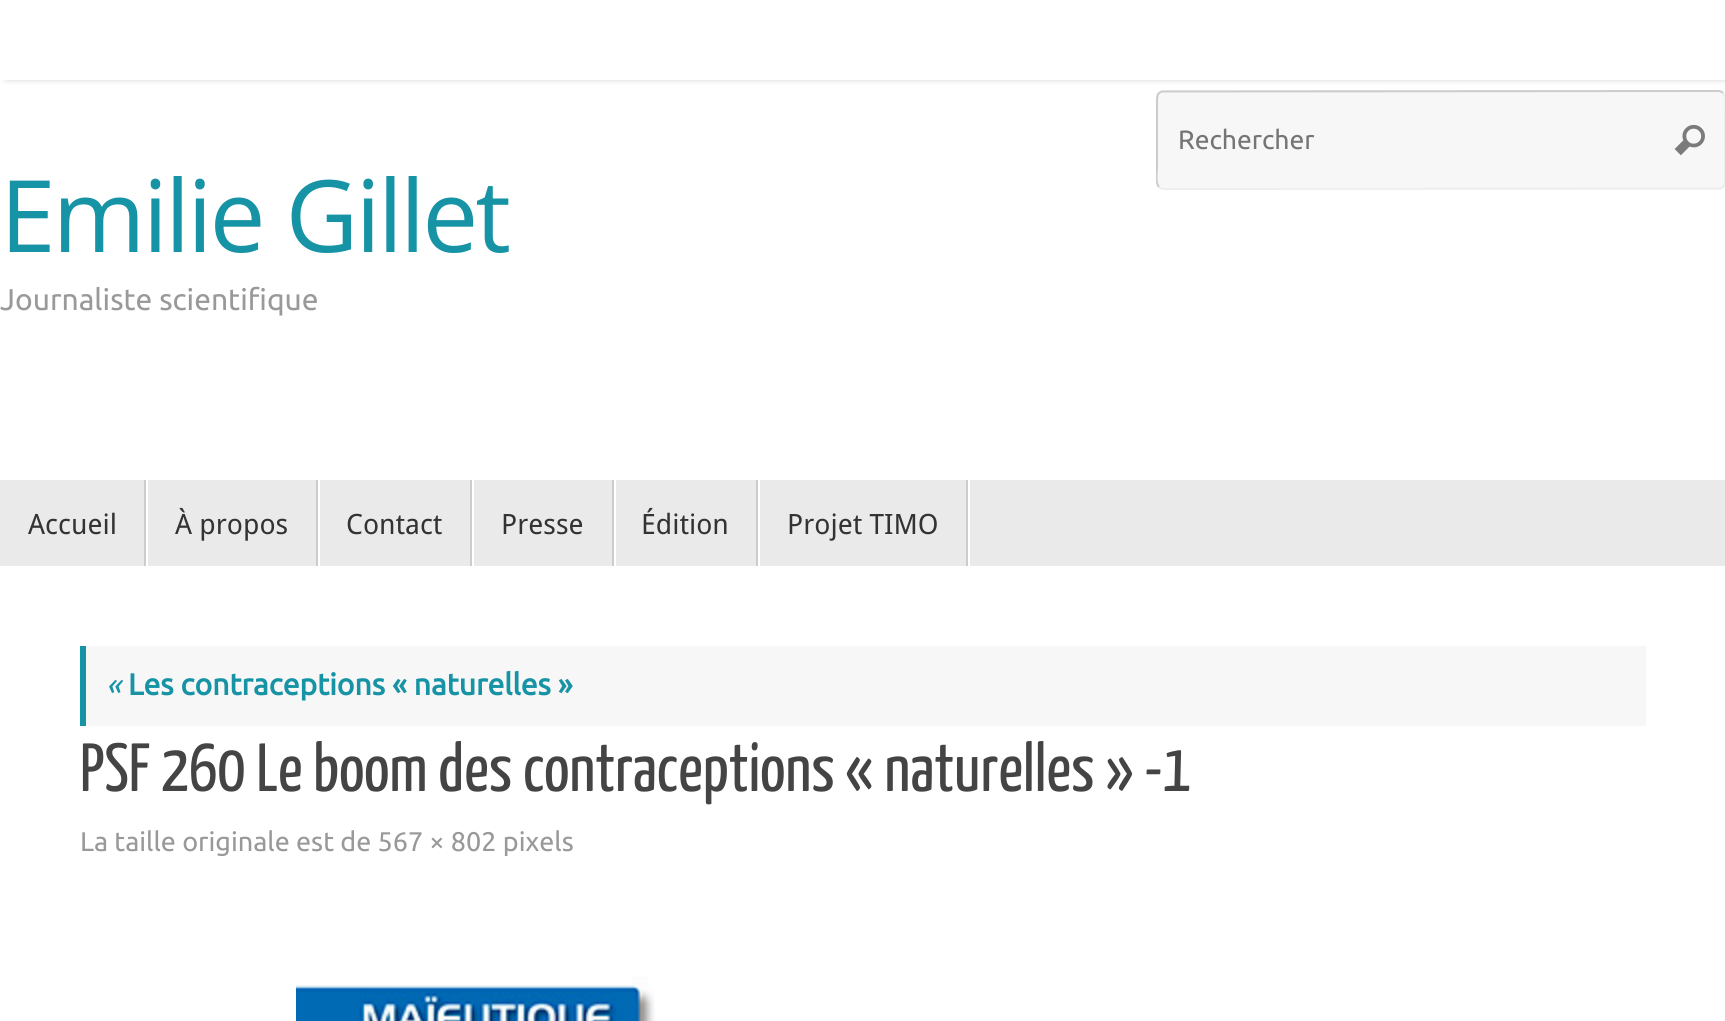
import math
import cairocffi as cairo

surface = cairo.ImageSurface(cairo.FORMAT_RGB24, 1725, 1021)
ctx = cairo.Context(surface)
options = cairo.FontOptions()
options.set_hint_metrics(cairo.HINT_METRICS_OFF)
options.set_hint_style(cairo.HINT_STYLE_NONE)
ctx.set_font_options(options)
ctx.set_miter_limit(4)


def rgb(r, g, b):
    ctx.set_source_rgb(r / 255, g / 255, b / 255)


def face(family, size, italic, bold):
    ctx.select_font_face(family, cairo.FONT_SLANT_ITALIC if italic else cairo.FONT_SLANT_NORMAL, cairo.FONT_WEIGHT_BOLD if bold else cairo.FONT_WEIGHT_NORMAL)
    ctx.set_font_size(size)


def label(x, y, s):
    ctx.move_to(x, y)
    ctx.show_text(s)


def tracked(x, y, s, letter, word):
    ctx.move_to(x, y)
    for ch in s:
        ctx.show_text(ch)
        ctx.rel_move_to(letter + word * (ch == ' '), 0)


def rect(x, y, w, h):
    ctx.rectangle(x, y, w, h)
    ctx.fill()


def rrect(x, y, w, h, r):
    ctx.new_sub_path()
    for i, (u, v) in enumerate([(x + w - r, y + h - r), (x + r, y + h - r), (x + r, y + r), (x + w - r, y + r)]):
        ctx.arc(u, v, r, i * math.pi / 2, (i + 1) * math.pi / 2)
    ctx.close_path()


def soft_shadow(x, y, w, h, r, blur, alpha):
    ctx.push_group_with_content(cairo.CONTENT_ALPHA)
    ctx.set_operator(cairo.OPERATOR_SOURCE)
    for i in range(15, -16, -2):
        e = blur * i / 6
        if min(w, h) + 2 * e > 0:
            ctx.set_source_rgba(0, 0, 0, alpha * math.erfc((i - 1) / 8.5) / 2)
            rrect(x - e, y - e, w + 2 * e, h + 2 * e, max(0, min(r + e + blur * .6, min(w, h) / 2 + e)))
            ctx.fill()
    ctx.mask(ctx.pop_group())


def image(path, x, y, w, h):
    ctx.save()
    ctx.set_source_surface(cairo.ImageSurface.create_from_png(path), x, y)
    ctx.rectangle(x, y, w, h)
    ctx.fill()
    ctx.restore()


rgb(255, 255, 255)
ctx.paint()
ctx.save()
ctx.rectangle(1, 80, 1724, 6)
ctx.clip()
rgb(215, 215, 215)
soft_shadow(6, 0, 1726, 80, 0, 3, 1)
ctx.restore()
rgb(247, 247, 247)
rrect(1156, 90, 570, 100, 8)
ctx.fill()
ctx.new_path()
ctx.move_to(1723, 93)
ctx.curve_to(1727, 97.5, 1725, 109, 1725, 112)
ctx.line_to(1725, 182)
ctx.line_to(1724, 186)
ctx.curve_to(1723, 187, 1721.5, 188, 1720, 188.5)
ctx.line_to(1164, 189)
ctx.curve_to(1162, 189, 1160.5, 188.5, 1159, 187)
rgb(238, 238, 238)
ctx.stroke()
ctx.save()
ctx.rectangle(1156, 90, 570, 100)
ctx.clip()
ctx.new_path()
ctx.move_to(1159, 187)
ctx.curve_to(1155, 182.5, 1157, 171, 1157, 168)
ctx.line_to(1157, 98)
ctx.line_to(1158, 94)
ctx.curve_to(1159, 93, 1160.5, 92, 1162, 91.5)
ctx.line_to(1718, 91)
ctx.curve_to(1720, 91, 1721.5, 91.5, 1723, 93)
rgb(204, 204, 204)
ctx.stroke()
ctx.restore()
face('Ubuntu', 26.5, 0, 0)
rgb(117, 117, 117)
label(1178, 149, 'Rechercher')
image('image0.png', 1674, 124, 31, 32)
face('Open Sans', 100, 0, 0)
rgb(22, 147, 165)
tracked(0, 252, 'Emilie Gillet', -3, 0)
face('Ubuntu', 30, 0, 0)
rgb(153, 153, 153)
label(0, 310, 'Journaliste scientifique')
rgb(234, 234, 234)
rect(0, 480, 1725, 86)
rgb(255, 255, 255)
rect(146, 480, 2, 86)
rgb(204, 204, 204)
rect(144, 480, 2, 86)
face('Droid Sans', 28, 0, 0)
rgb(51, 51, 51)
label(28, 534, 'Accueil')
rgb(255, 255, 255)
rect(318, 480, 2, 86)
rgb(204, 204, 204)
rect(316, 480, 2, 86)
rgb(51, 51, 51)
label(175, 534, 'À propos')
rgb(255, 255, 255)
rect(472, 480, 2, 86)
rgb(204, 204, 204)
rect(470, 480, 2, 86)
rgb(51, 51, 51)
label(346, 534, 'Contact')
rgb(255, 255, 255)
rect(614, 480, 2, 86)
rgb(204, 204, 204)
rect(612, 480, 2, 86)
rgb(51, 51, 51)
label(501, 534, 'Presse')
rgb(255, 255, 255)
rect(758, 480, 2, 86)
rgb(204, 204, 204)
rect(756, 480, 2, 86)
rgb(51, 51, 51)
label(641, 534, 'Édition')
rgb(255, 255, 255)
rect(968, 480, 2, 86)
rgb(204, 204, 204)
rect(966, 480, 2, 86)
rgb(51, 51, 51)
label(787, 534, 'Projet TIMO')
rgb(247, 247, 247)
rect(86, 646, 1560, 80)
rgb(22, 147, 165)
rect(80, 646, 6, 80)
face('Ubuntu', 30, 1, 0)
label(106, 695, '«')
face('Ubuntu', 30, 0, 1)
label(128, 695, 'Les contraceptions « naturelles »')
face('Yanone Kaffeesatz', 68, 0, 0)
rgb(68, 68, 68)
label(80, 791, 'PSF 260 Le boom des contraceptions « naturelles » -1')
face('Ubuntu', 27, 0, 0)
rgb(153, 153, 153)
label(80, 851, 'La taille originale est de 567 × 802 pixels')
image('image1.png', 296, 976, 359, 45)
surface.write_to_png('render.png')
